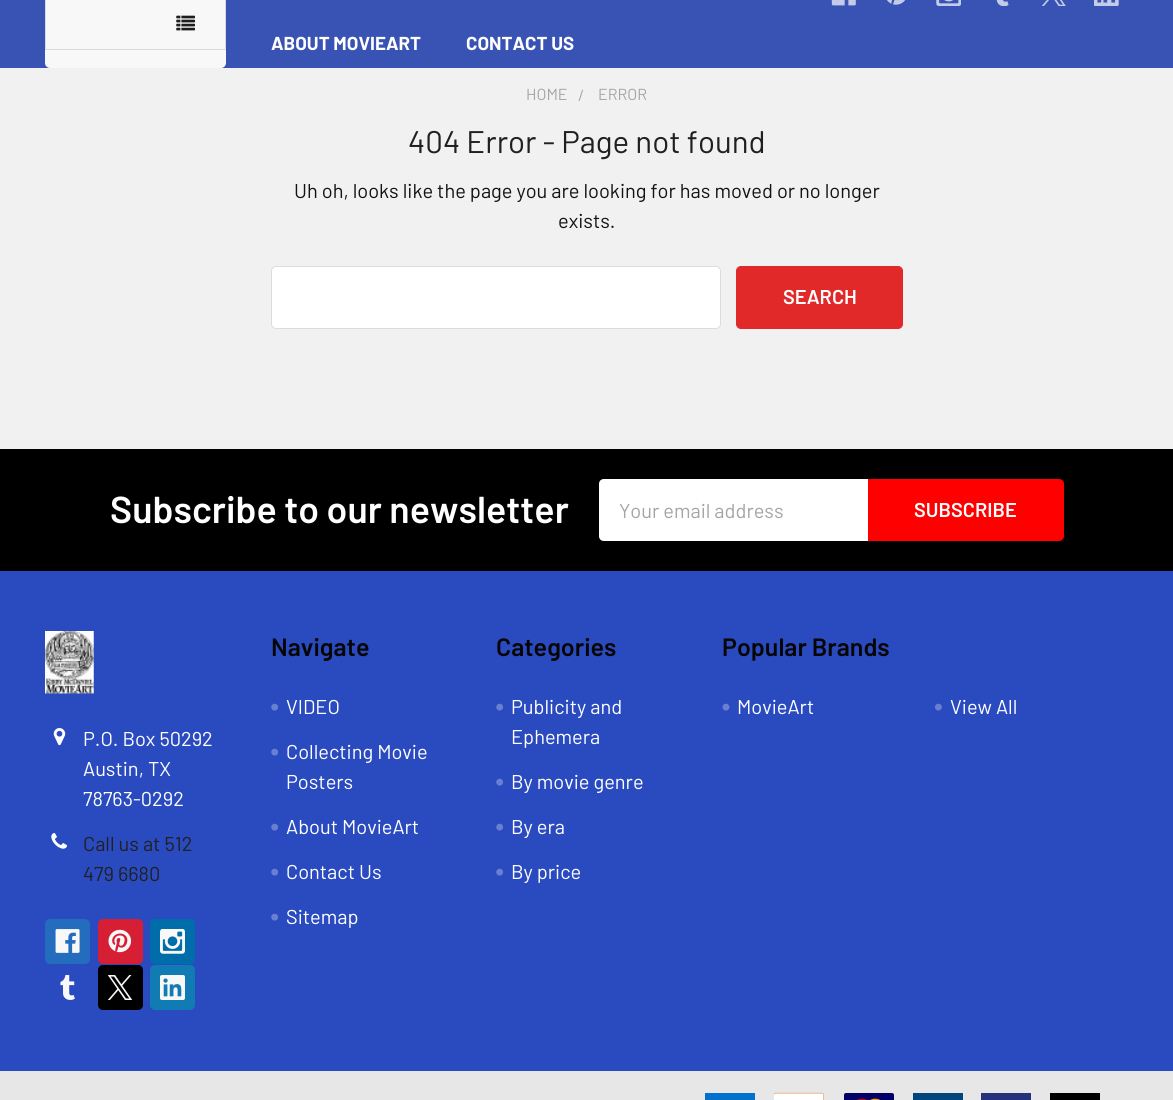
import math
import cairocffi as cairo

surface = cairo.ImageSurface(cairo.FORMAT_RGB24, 1173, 1100)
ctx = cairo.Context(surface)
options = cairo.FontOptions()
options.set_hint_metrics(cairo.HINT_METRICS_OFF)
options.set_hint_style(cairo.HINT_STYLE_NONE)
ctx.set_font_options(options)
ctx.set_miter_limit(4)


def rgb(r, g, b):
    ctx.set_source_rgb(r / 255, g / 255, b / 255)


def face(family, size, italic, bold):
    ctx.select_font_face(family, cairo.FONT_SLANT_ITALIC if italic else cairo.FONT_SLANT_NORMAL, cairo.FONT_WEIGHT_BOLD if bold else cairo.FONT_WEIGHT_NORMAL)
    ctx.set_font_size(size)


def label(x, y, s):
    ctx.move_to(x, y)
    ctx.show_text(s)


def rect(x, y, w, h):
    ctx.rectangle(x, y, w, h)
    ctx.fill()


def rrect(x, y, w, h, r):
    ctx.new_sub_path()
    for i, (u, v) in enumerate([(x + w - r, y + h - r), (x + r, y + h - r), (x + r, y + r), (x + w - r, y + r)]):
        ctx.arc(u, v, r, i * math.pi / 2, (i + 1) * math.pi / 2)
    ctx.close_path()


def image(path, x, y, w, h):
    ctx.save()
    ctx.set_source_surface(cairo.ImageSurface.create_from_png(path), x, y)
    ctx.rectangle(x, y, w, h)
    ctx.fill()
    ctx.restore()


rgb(241, 241, 242)
ctx.paint()
rgb(56, 83, 180)
rect(0, 0, 1173, 68)
rgb(248, 248, 248)
rrect(45, -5, 181, 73, 5)
ctx.fill()
ctx.rectangle(45.5, -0.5, 180, 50)
rgb(220, 220, 220)
ctx.set_line_width(1)
ctx.stroke()
image('image0.png', 176, 15, 19, 16)
image('image1.png', 831, 0, 25, 6)
image('image2.png', 887, 0, 18, 5)
image('image3.png', 936, 0, 25, 6)
image('image4.png', 996, 0, 13, 6)
image('image5.png', 1041, 0, 25, 6)
image('image6.png', 1094, 0, 25, 6)
face('Barlow', 18.75, 0, 1)
rgb(255, 255, 255)
label(271, 50, 'ABOUT MOVIEART')
label(466, 50, 'CONTACT US')
face('Barlow', 16, 0, 0)
rgb(165, 165, 165)
label(526, 100, 'HOME')
label(578, 101, '/')
label(598, 100, 'ERROR')
face('Barlow', 31.25, 0, 0)
rgb(32, 32, 32)
label(408, 153, '404 Error - Page not found')
face('Barlow', 20, 0, 0)
rgb(19, 19, 19)
label(294, 198, 'Uh oh, looks like the page you are looking for has moved or no longer')
label(558, 228, 'exists.')
rgb(255, 255, 255)
rrect(271.5, 266.5, 449, 62, 4.5)
ctx.fill_preserve()
rgb(220, 220, 220)
ctx.stroke()
rgb(225, 41, 41)
rrect(736.5, 266.5, 166, 62, 4.5)
ctx.fill_preserve()
ctx.stroke()
face('Barlow SemiBold', 20, 0, 0)
rgb(255, 255, 255)
label(783, 304, 'SEARCH')
rgb(42, 74, 191)
rect(0, 571, 1173, 500)
rgb(0, 0, 0)
rect(0, 449, 1173, 122)
face('Barlow SemiBold', 37.5, 0, 0)
rgb(255, 255, 255)
label(110, 523, 'Subscribe to our newsletter')
ctx.new_path()
ctx.move_to(604, 479)
ctx.line_to(868, 479)
ctx.line_to(868, 541)
ctx.line_to(604, 541)
ctx.curve_to(601, 541, 599, 539, 599, 536)
ctx.line_to(599, 484)
ctx.curve_to(599, 481, 601, 479, 604, 479)
ctx.close_path()
ctx.fill()
face('Barlow', 20, 0, 0)
rgb(165, 165, 165)
label(619, 518, 'Your email address')
rgb(255, 0, 0)
ctx.new_path()
ctx.move_to(868.5, 479.5)
ctx.line_to(1059, 479.5)
ctx.curve_to(1061.5, 479.5, 1063.5, 481.5, 1063.5, 484)
ctx.line_to(1063.5, 536)
ctx.curve_to(1063.5, 538.5, 1061.5, 540.5, 1059, 540.5)
ctx.line_to(868.5, 540.5)
ctx.close_path()
ctx.fill_preserve()
ctx.stroke()
face('Barlow SemiBold', 20, 0, 0)
rgb(255, 255, 255)
label(914, 517, 'SUBSCRIBE')
face('Barlow SemiBold', 25, 0, 0)
rgb(5, 5, 5)
label(271, 656, 'Navigate')
image('image7.png', 271, 703, 7, 8)
face('Barlow', 20, 0, 0)
rgb(255, 255, 255)
label(286, 714, 'VIDEO')
image('image7.png', 271, 748, 7, 8)
label(286, 759, 'Collecting Movie')
label(286, 789, 'Posters')
image('image7.png', 271, 823, 7, 8)
label(286, 834, 'About MovieArt')
image('image7.png', 271, 868, 7, 8)
label(286, 879, 'Contact Us')
image('image7.png', 271, 913, 7, 8)
label(286, 924, 'Sitemap')
face('Barlow SemiBold', 25, 0, 0)
rgb(5, 5, 5)
label(496, 656, 'Categories')
image('image7.png', 496, 703, 7, 8)
face('Barlow', 20, 0, 0)
rgb(255, 255, 255)
label(511, 714, 'Publicity and')
label(511, 744, 'Ephemera')
image('image7.png', 496, 778, 7, 8)
label(511, 789, 'By movie genre')
image('image7.png', 496, 823, 7, 8)
label(511, 834, 'By era')
image('image7.png', 496, 868, 7, 8)
label(511, 879, 'By price')
face('Barlow SemiBold', 25, 0, 0)
rgb(5, 5, 5)
label(722, 656, 'Popular Brands')
image('image8.png', 722, 703, 8, 8)
face('Barlow', 20, 0, 0)
rgb(255, 255, 255)
label(737, 714, 'MovieArt')
image('image9.png', 935, 703, 7, 8)
label(950, 714, 'View All')
image('image10.png', 45, 631, 49, 63)
image('image11.png', 53, 728, 13, 18)
label(83, 746, 'P.O. Box 50292')
label(83, 776, 'Austin, TX')
label(83, 806, '78763-0292')
image('image12.png', 51, 833, 16, 16)
rgb(32, 32, 32)
label(83, 851, 'Call us at 512')
label(83, 881, '479 6680')
rgb(35, 108, 190)
rrect(45, 919, 45, 45, 5)
ctx.fill()
image('image13.png', 55, 929, 25, 24)
rgb(214, 31, 53)
rrect(98, 919, 45, 45, 5)
ctx.fill()
image('image14.png', 108, 929, 24, 24)
rgb(0, 109, 171)
rrect(150, 919, 45, 45, 5)
ctx.fill()
image('image15.png', 160, 929, 25, 25)
image('image16.png', 60, 975, 15, 25)
rgb(0, 0, 0)
rrect(98, 965, 45, 45, 5)
ctx.fill()
image('image17.png', 108, 975, 25, 25)
rgb(17, 124, 179)
rrect(150, 965, 45, 45, 5)
ctx.fill()
image('image18.png', 160, 975, 25, 25)
rgb(231, 231, 232)
rect(0, 1071, 1173, 29)
rgb(0, 114, 206)
rect(705, 1093, 50, 7)
image('image19.png', 774, 1092, 50, 8)
image('image20.png', 844, 1093, 50, 7)
rgb(0, 69, 124)
rect(913, 1093, 50, 7)
rgb(38, 51, 122)
rect(981, 1093, 50, 7)
rgb(0, 0, 0)
rect(1050, 1093, 50, 7)
surface.write_to_png('render.png')
